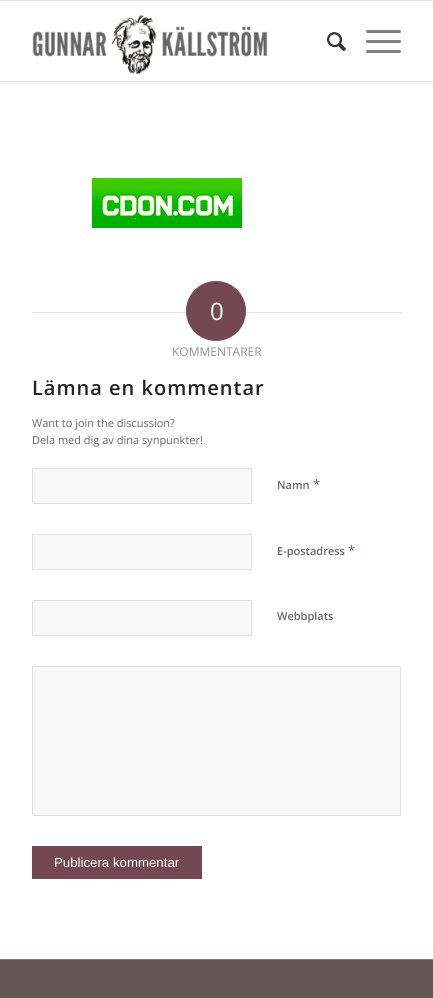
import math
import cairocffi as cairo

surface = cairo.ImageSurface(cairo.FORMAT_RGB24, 433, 998)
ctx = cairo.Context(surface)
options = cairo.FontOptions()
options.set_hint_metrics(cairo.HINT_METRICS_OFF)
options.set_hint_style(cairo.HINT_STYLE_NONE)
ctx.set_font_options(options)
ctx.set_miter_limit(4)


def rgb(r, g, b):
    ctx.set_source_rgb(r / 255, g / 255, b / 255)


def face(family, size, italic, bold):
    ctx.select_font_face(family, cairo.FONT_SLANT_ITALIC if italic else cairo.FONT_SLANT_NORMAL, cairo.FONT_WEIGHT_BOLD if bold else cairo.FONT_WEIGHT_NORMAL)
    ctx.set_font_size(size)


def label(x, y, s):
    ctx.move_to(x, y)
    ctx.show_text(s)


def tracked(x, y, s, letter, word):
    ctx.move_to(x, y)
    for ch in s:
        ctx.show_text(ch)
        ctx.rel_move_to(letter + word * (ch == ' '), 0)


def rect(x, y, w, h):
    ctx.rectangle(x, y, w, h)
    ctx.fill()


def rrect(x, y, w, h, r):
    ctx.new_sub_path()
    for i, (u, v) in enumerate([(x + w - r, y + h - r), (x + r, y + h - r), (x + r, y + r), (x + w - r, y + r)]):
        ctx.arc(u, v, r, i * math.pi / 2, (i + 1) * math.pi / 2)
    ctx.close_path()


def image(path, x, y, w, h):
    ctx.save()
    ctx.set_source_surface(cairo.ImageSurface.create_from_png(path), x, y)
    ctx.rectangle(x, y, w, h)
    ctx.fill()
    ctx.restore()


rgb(255, 255, 255)
ctx.paint()
rgb(225, 225, 225)
rect(0, 0, 433, 1)
rect(0, 81, 433, 1)
image('image0.png', 32, 14, 236, 60)
image('image1.png', 327, 32, 19, 20)
rgb(128, 128, 128)
rrect(366, 40, 35, 3, 1.5)
ctx.fill()
rrect(366, 30, 35, 3, 1.5)
ctx.fill()
rrect(366, 50, 35, 3, 1.5)
ctx.fill()
image('image2.png', 88, 175, 160, 56)
rgb(225, 225, 225)
rect(32, 312, 155, 1)
rgb(115, 72, 84)
ctx.arc(216, 311, 30, 0, 2 * math.pi)
ctx.fill()
face('Open Sans', 24, 0, 0)
rgb(255, 255, 255)
label(210, 320, '0')
rgb(225, 225, 225)
rect(246, 312, 155, 1)
face('Open Sans', 12, 0, 0)
rgb(145, 145, 145)
label(172, 356, 'KOMMENTARER')
face('Open Sans SemiBold', 20, 0, 0)
rgb(34, 34, 34)
tracked(32, 395, 'Lämna en kommentar', 1, 0)
face('Open Sans', 11, 0, 0)
rgb(102, 102, 102)
label(32, 427, 'Want to join the discussion?')
label(32, 444, 'Dela med dig av dina synpunkter!')
rgb(248, 248, 248)
ctx.rectangle(32.5, 468.5, 219, 35)
ctx.fill_preserve()
rgb(225, 225, 225)
ctx.set_line_width(1)
ctx.stroke()
face('Open Sans SemiBold', 11, 0, 0)
rgb(102, 102, 102)
label(277, 489, 'Namn')
face('Open Sans', 13, 0, 0)
rgb(115, 72, 84)
label(313, 489, '*')
rgb(248, 248, 248)
ctx.rectangle(32.5, 534.5, 219, 35)
ctx.fill_preserve()
rgb(225, 225, 225)
ctx.stroke()
face('Open Sans SemiBold', 11, 0, 0)
rgb(102, 102, 102)
label(277, 555, 'E-postadress')
face('Open Sans', 13, 0, 0)
rgb(115, 72, 84)
label(348, 555, '*')
rgb(248, 248, 248)
ctx.rectangle(32.5, 600.5, 219, 35)
ctx.fill_preserve()
rgb(225, 225, 225)
ctx.stroke()
face('Open Sans SemiBold', 11, 0, 0)
rgb(102, 102, 102)
label(277, 620, 'Webbplats')
rgb(248, 248, 248)
ctx.rectangle(32.5, 666.5, 368, 149)
ctx.fill_preserve()
rgb(225, 225, 225)
ctx.stroke()
rgb(115, 72, 84)
rect(32, 846, 170, 33)
face('Liberation Sans', 13.25, 0, 0)
rgb(255, 255, 255)
label(54, 867, 'Publicera kommentar')
rgb(99, 86, 85)
rect(0, 960, 433, 38)
rgb(128, 120, 119)
rect(0, 959, 433, 1)
surface.write_to_png('render.png')
